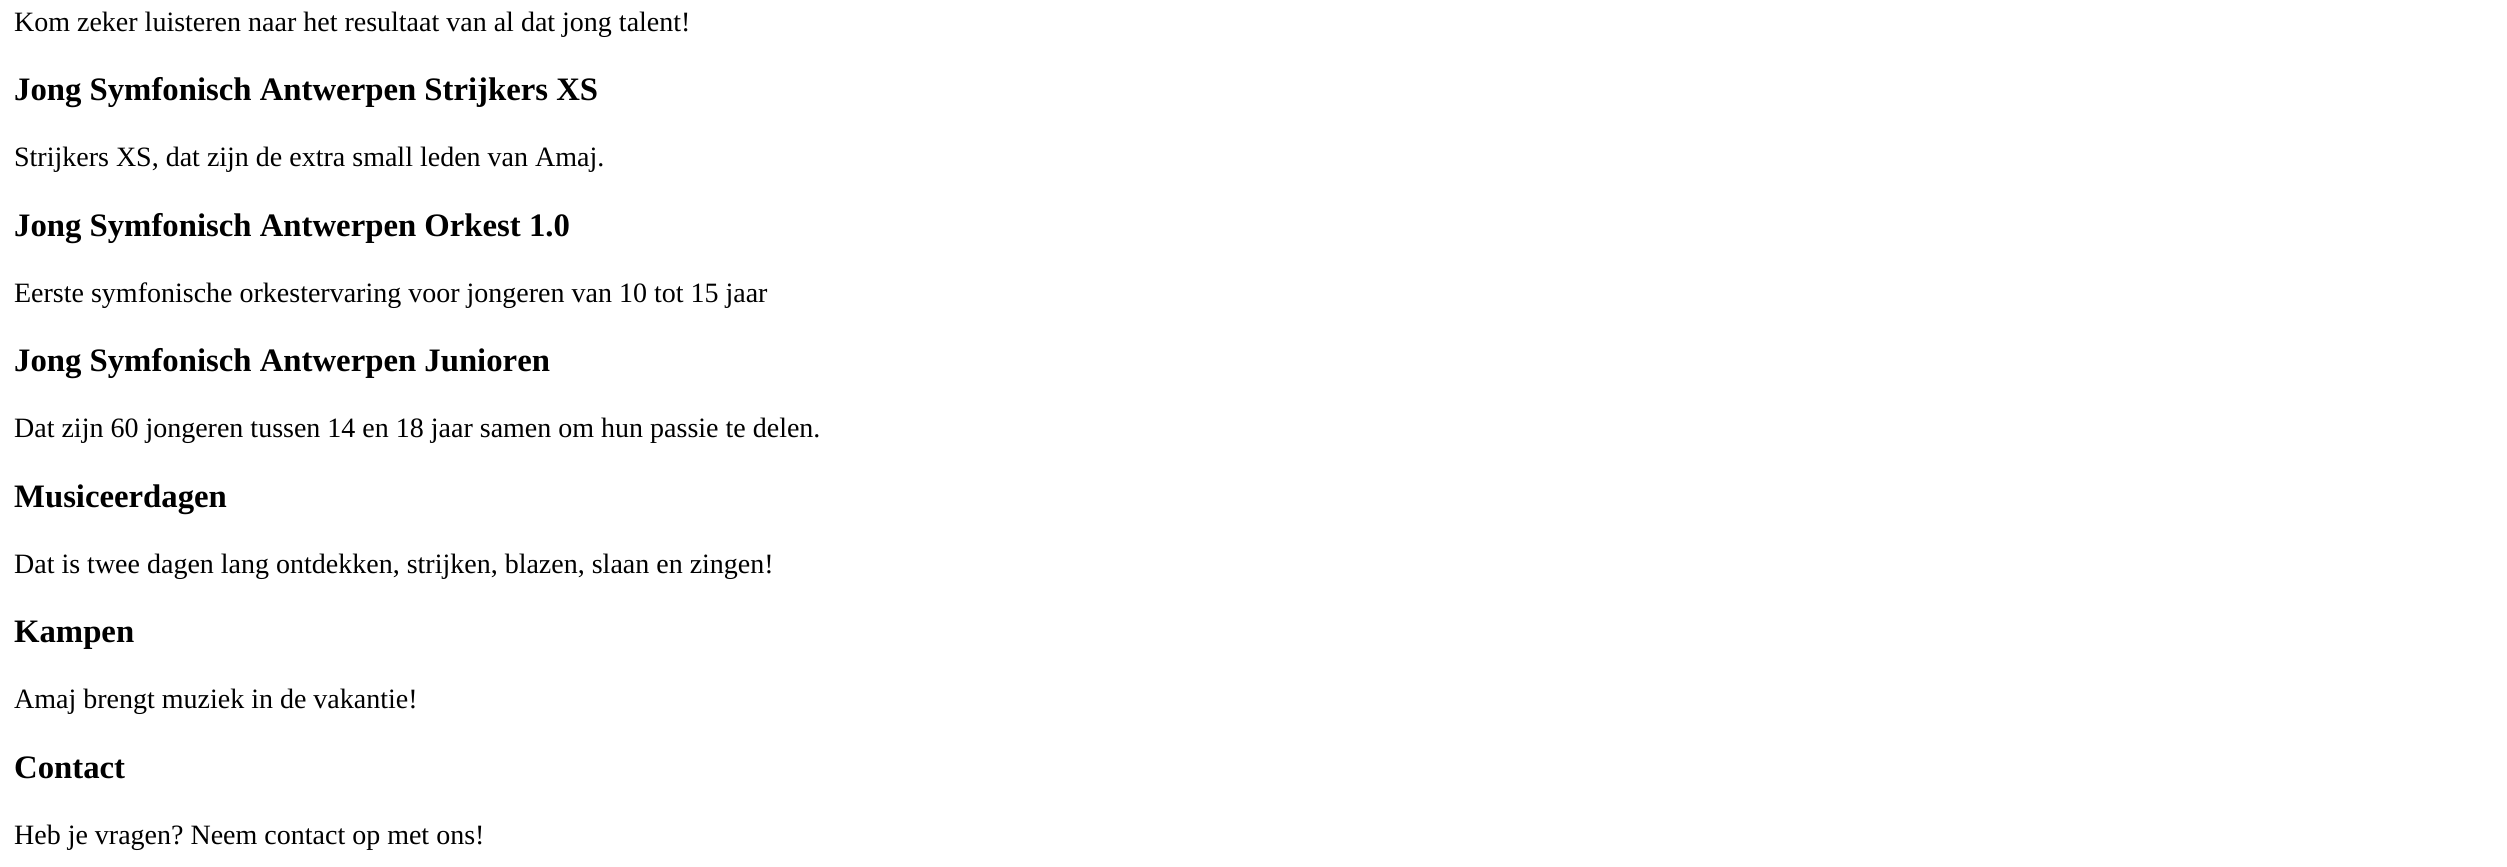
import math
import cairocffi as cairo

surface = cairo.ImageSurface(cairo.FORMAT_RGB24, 2507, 867)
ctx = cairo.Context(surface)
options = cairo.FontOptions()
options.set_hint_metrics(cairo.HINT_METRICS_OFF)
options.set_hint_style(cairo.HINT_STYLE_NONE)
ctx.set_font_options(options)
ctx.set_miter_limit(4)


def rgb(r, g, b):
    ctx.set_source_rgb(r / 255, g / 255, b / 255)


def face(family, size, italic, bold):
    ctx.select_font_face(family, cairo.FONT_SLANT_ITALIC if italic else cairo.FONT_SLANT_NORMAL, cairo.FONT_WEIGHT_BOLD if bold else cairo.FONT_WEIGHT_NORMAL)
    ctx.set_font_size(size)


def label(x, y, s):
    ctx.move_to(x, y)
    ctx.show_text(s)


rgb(255, 255, 255)
ctx.paint()
face('Liberation Serif', 28, 0, 0)
rgb(0, 0, 0)
label(14, 31, 'Kom zeker luisteren naar het resultaat van al dat jong talent!')
face('Liberation Serif', 32.75, 0, 1)
label(14, 100, 'Jong Symfonisch Antwerpen Strijkers XS')
face('Liberation Serif', 28, 0, 0)
label(14, 166, 'Strijkers XS, dat zijn de extra small leden van Amaj.')
face('Liberation Serif', 32.75, 0, 1)
label(14, 236, 'Jong Symfonisch Antwerpen Orkest 1.0')
face('Liberation Serif', 28, 0, 0)
label(14, 302, 'Eerste symfonische orkestervaring voor jongeren van 10 tot 15 jaar')
face('Liberation Serif', 32.75, 0, 1)
label(14, 371, 'Jong Symfonisch Antwerpen Junioren')
face('Liberation Serif', 28, 0, 0)
label(14, 437, 'Dat zijn 60 jongeren tussen 14 en 18 jaar samen om hun passie te delen.')
face('Liberation Serif', 32.75, 0, 1)
label(14, 507, 'Musiceerdagen')
face('Liberation Serif', 28, 0, 0)
label(14, 573, 'Dat is twee dagen lang ontdekken, strijken, blazen, slaan en zingen!')
face('Liberation Serif', 32.75, 0, 1)
label(14, 642, 'Kampen')
face('Liberation Serif', 28, 0, 0)
label(14, 708, 'Amaj brengt muziek in de vakantie!')
face('Liberation Serif', 32.75, 0, 1)
label(14, 778, 'Contact')
face('Liberation Serif', 28, 0, 0)
label(14, 844, 'Heb je vragen? Neem contact op met ons!')
surface.write_to_png('render.png')
